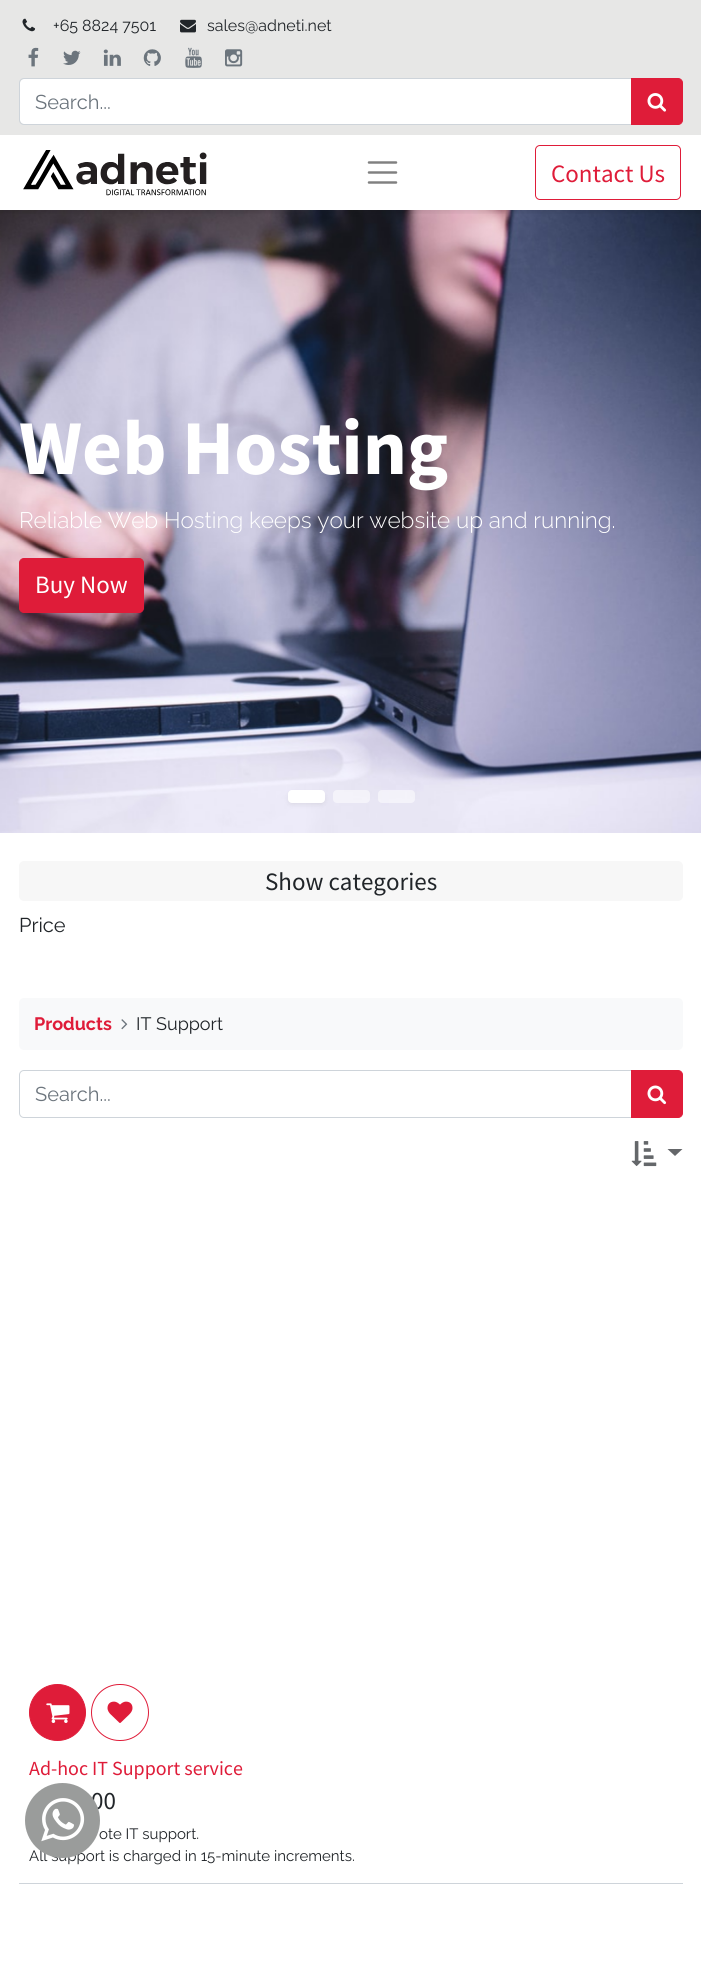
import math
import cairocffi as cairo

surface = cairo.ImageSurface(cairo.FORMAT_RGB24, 701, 1982)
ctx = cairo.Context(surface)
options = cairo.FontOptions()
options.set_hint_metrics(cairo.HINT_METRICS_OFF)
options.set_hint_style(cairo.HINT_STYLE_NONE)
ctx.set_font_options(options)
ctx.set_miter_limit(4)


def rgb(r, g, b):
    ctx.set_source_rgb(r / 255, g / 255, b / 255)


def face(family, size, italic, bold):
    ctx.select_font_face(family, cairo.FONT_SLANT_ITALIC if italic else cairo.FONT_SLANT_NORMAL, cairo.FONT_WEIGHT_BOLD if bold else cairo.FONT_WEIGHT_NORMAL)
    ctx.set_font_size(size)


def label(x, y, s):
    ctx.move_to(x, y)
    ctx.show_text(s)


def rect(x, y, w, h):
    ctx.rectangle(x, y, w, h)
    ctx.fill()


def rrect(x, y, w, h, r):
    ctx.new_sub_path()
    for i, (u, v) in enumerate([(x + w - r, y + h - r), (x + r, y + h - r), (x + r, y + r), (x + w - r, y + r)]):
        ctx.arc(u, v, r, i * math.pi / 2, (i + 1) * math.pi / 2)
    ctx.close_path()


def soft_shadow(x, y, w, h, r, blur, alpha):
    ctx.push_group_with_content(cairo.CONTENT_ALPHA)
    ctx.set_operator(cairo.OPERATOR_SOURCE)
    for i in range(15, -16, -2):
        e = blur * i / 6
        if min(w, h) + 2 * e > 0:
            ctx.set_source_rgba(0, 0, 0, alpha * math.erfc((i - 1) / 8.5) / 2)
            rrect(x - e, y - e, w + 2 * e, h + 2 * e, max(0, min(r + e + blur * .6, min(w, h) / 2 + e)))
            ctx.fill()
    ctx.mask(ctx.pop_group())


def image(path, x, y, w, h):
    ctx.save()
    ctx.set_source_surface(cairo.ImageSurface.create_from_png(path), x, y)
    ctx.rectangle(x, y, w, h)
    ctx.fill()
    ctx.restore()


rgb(255, 255, 255)
ctx.paint()
rgb(231, 231, 230)
rect(0, 0, 701, 135)
image('image0.png', 22, 18, 14, 14)
face('Raleway', 16, 0, 0)
rgb(33, 37, 41)
label(53, 31, '+65 8824 7501')
image('image1.png', 180, 19, 16, 14)
label(207, 31, 'sales@adneti.net')
image('image2.png', 28, 47, 11, 20)
image('image3.png', 63, 50, 18, 15)
image('image4.png', 103, 49, 18, 17)
image('image5.png', 143, 49, 18, 17)
image('image6.png', 185, 47, 17, 21)
image('image7.png', 225, 49, 18, 18)
rgb(255, 255, 255)
ctx.new_path()
ctx.move_to(24, 79)
ctx.line_to(631, 79)
ctx.line_to(631, 124)
ctx.line_to(24, 124)
ctx.curve_to(22, 124, 20, 122, 20, 120)
ctx.line_to(20, 83)
ctx.curve_to(20, 81, 22, 79, 24, 79)
ctx.close_path()
ctx.fill()
ctx.new_path()
ctx.move_to(24, 78.5)
ctx.line_to(632.5, 78.5)
ctx.line_to(632.5, 124.5)
ctx.line_to(24, 124.5)
ctx.curve_to(21.5, 124.5, 19.5, 122.5, 19.5, 120)
ctx.line_to(19.5, 83)
ctx.curve_to(19.5, 80.5, 21.5, 78.5, 24, 78.5)
ctx.close_path()
rgb(206, 212, 218)
ctx.set_line_width(1)
ctx.stroke()
face('Raleway', 20, 0, 0)
rgb(108, 117, 125)
label(35, 109, 'Search...')
rgb(223, 28, 57)
ctx.new_path()
ctx.move_to(631.5, 78.5)
ctx.line_to(678, 78.5)
ctx.curve_to(680.5, 78.5, 682.5, 80.5, 682.5, 83)
ctx.line_to(682.5, 120)
ctx.curve_to(682.5, 122.5, 680.5, 124.5, 678, 124.5)
ctx.line_to(631.5, 124.5)
ctx.close_path()
ctx.fill_preserve()
ctx.stroke()
image('image8.png', 647, 93, 20, 19)
image('image10.png', 0, 210, 701, 623)
ctx.save()
ctx.rectangle(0, 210, 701, 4)
ctx.clip()
rgb(0, 0, 0)
soft_shadow(0, 138, 701, 75, 0, 2.5, 0.07)
ctx.restore()
image('image9.png', 23, 150, 184, 46)
ctx.new_path()
ctx.move_to(369, 162.5)
ctx.line_to(396, 162.5)
ctx.move_to(369, 172.5)
ctx.line_to(396, 172.5)
ctx.move_to(369, 182.5)
ctx.line_to(396, 182.5)
rgb(128, 128, 128)
ctx.set_line_width(2.5)
ctx.set_line_cap(cairo.LINE_CAP_ROUND)
ctx.stroke()
rrect(535.5, 145.5, 145, 54, 4.5)
rgb(223, 28, 57)
ctx.set_line_width(1)
ctx.set_line_cap(cairo.LINE_CAP_BUTT)
ctx.stroke()
face('Source Sans Pro', 25, 0, 0)
label(551, 182, 'Contact Us')
face('Source Sans Pro', 77.5, 0, 1)
rgb(255, 255, 255)
label(19, 474, 'Web Hosting')
face('Raleway Light', 22.5, 0, 0)
label(19, 528, 'Reliable Web Hosting keeps your website up and running.')
rgb(223, 28, 57)
rrect(19.5, 558.5, 124, 54, 4.5)
ctx.fill_preserve()
ctx.stroke()
face('Source Sans Pro', 25, 0, 0)
rgb(255, 255, 255)
label(35, 593, 'Buy Now')
rgb(0, 0, 0)
soft_shadow(288, 793, 37, 12, 4, 2.5, 0.07)
rgb(255, 255, 255)
rrect(288, 790, 37, 13, 4)
ctx.fill()
ctx.set_source_rgba(1, 1, 1, 0.5)
rrect(333, 790, 37, 13, 4)
ctx.fill()
rrect(378, 790, 37, 13, 4)
ctx.fill()
rgb(247, 247, 247)
rrect(19, 861, 664, 40, 5)
ctx.fill()
rgb(33, 37, 41)
label(265, 890, 'Show categories')
face('Raleway', 20, 0, 0)
label(19, 932, 'Price')
rgb(248, 249, 250)
rrect(19, 998, 664, 52, 5)
ctx.fill()
face('Raleway', 18, 0, 1)
rgb(223, 28, 57)
label(34, 1030, 'Products')
image('image11.png', 121, 1019, 7, 11)
face('Raleway', 18, 0, 0)
rgb(33, 37, 41)
label(136, 1030, 'IT Support')
ctx.new_path()
ctx.move_to(24, 1070.5)
ctx.line_to(632.5, 1070.5)
ctx.line_to(632.5, 1117.5)
ctx.line_to(24, 1117.5)
ctx.curve_to(21.5, 1117.5, 19.5, 1115.5, 19.5, 1113)
ctx.line_to(19.5, 1075)
ctx.curve_to(19.5, 1072.5, 21.5, 1070.5, 24, 1070.5)
ctx.close_path()
rgb(206, 212, 218)
ctx.stroke()
face('Raleway', 20, 0, 0)
rgb(108, 117, 125)
label(35, 1101, 'Search...')
rgb(223, 28, 57)
ctx.new_path()
ctx.move_to(631.5, 1070.5)
ctx.line_to(678, 1070.5)
ctx.curve_to(680.5, 1070.5, 682.5, 1072.5, 682.5, 1075)
ctx.line_to(682.5, 1113)
ctx.curve_to(682.5, 1115.5, 680.5, 1117.5, 678, 1117.5)
ctx.line_to(631.5, 1117.5)
ctx.close_path()
ctx.fill_preserve()
ctx.stroke()
image('image12.png', 647, 1085, 20, 20)
image('image13.png', 631, 1141, 26, 26)
rgb(100, 102, 105)
ctx.new_path()
ctx.move_to(667.5, 1149)
ctx.line_to(682.5, 1149)
ctx.line_to(675, 1156)
ctx.close_path()
ctx.fill()
rgb(206, 212, 218)
rect(19, 1883, 664, 1)
rgb(223, 28, 57)
ctx.arc(57.5, 1712.5, 28, 0, 2 * math.pi)
ctx.fill_preserve()
ctx.stroke()
image('image14.png', 46, 1703, 24, 20)
rrect(91.5, 1684.5, 57, 56, 28)
ctx.stroke()
image('image15.png', 107, 1701, 26, 22)
face('Source Sans Pro', 20, 0, 0)
label(29, 1775, 'Ad-hoc IT Support service')
face('Source Sans Pro', 25, 0, 0)
rgb(33, 37, 41)
label(91, 1809, '00')
face('Raleway', 15, 0, 0)
label(99, 1839, 'ote IT support.')
label(29, 1861, 'All support is charged in 15-minute increments.')
rgb(154, 156, 155)
ctx.new_path()
ctx.arc(62.5, 1820.5, 37.5, 0, 2 * math.pi)
ctx.fill()
image('image16.png', 41, 1798, 44, 44)
surface.write_to_png('render.png')
